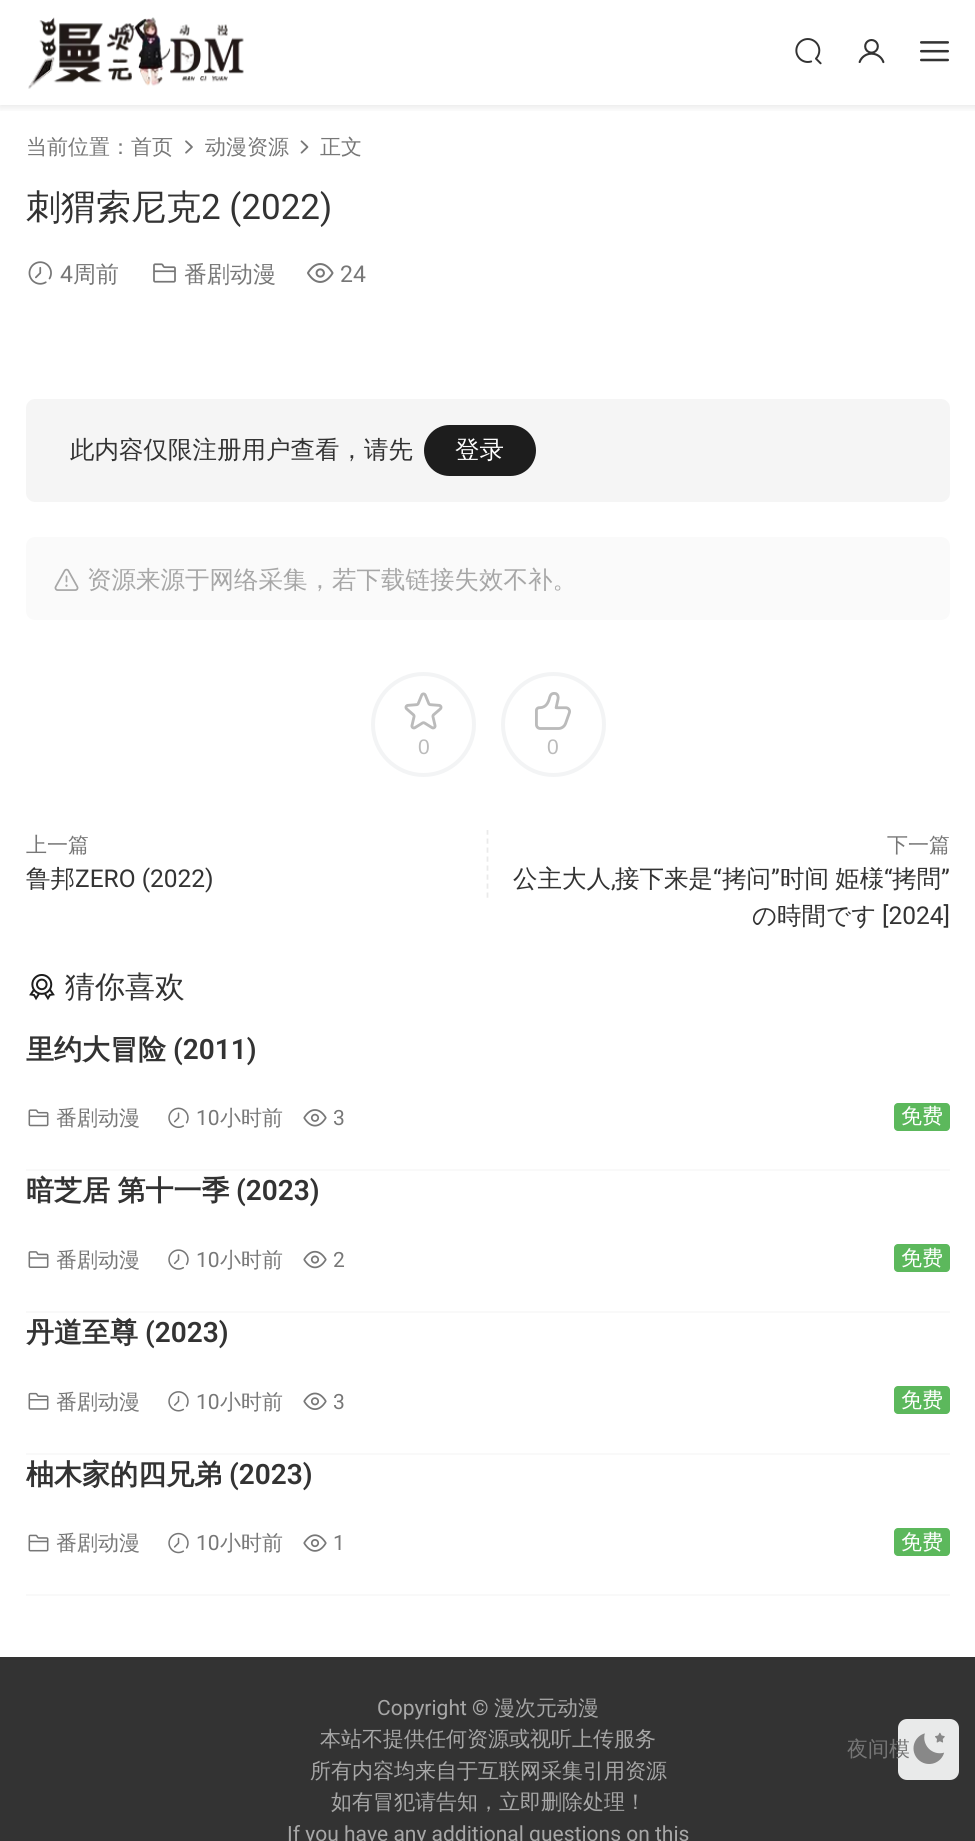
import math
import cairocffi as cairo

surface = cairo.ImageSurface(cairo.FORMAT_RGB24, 975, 1841)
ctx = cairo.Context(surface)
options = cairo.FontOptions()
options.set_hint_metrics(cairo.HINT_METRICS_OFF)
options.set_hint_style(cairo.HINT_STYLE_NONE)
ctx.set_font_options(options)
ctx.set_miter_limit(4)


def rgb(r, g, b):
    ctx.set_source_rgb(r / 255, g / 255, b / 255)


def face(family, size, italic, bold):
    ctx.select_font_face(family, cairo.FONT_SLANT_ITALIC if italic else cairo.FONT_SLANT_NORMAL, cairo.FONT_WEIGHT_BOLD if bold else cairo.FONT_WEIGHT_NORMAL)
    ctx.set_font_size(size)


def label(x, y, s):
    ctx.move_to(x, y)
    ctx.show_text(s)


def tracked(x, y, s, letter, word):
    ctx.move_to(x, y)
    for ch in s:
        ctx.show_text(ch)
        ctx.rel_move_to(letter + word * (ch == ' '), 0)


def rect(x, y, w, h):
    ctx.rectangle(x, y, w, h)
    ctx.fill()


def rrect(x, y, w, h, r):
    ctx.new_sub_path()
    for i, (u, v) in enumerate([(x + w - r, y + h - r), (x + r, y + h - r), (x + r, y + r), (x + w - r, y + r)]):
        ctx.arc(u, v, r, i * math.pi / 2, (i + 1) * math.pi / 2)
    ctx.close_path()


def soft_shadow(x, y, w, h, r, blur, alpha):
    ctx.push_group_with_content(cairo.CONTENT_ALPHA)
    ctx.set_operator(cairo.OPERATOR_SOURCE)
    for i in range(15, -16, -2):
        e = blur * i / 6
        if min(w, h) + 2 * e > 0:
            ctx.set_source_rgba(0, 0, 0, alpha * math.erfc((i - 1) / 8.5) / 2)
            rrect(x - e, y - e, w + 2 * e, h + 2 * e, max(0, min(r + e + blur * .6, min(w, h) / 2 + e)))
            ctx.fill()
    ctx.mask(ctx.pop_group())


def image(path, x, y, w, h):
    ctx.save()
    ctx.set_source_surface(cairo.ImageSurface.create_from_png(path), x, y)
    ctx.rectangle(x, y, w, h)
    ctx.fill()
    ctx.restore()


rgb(255, 255, 255)
ctx.paint()
ctx.save()
ctx.rectangle(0, 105, 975, 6)
ctx.clip()
rgb(0, 0, 0)
soft_shadow(0, 2, 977, 105, 0, 4.5, 0.1)
ctx.restore()
image('image0.png', 28, 17, 216, 72)
image('image1.png', 795, 38, 27, 27)
image('image2.png', 858, 39, 27, 25)
image('image3.png', 920, 41, 29, 21)
face('WenQuanYi Zen Hei Medium', 21, 0, 0)
rgb(119, 119, 119)
label(26, 154, '当前位置：首页')
image('image4.png', 185, 140, 8, 14)
label(205, 154, '动漫资源')
image('image5.png', 300, 140, 9, 14)
label(320, 154, '正文')
face('WenQuanYi Zen Hei Medium', 35, 0, 0)
rgb(51, 51, 51)
label(26, 219, '刺猬索尼克')
face('Roboto', 35, 0, 0)
label(201, 219, '2 (2022)')
image('image6.png', 28, 261, 24, 24)
face('Roboto', 23, 0, 0)
rgb(119, 119, 119)
label(60, 282, '4')
face('WenQuanYi Zen Hei Medium', 23, 0, 0)
label(73, 282, '周前')
image('image7.png', 153, 263, 23, 20)
label(184, 282, '番剧动漫')
image('image8.png', 307, 263, 27, 20)
face('Roboto', 23, 0, 0)
label(340, 282, '24')
rgb(245, 245, 245)
rrect(26, 399, 924, 103, 9)
ctx.fill()
face('WenQuanYi Zen Hei Medium', 24.5, 0, 0)
rgb(51, 51, 51)
label(70, 458, '此内容仅限注册用户查看，请先')
rgb(29, 29, 29)
rrect(424, 425, 112, 51, 25.5)
ctx.fill()
rgb(255, 255, 255)
label(455, 458, '登录')
rgb(250, 250, 250)
rrect(26, 537, 924, 83, 9)
ctx.fill()
image('image9.png', 54, 568, 25, 23)
rgb(167, 167, 167)
label(87, 588, '资源来源于网络采集，若下载链接失效不补。')
ctx.new_path()
ctx.arc(423.5, 724.5, 50.5, 0, 2 * math.pi)
rgb(243, 244, 245)
ctx.set_line_width(4)
ctx.stroke()
image('image10.png', 404, 692, 39, 38)
face('Liberation Sans', 21, 0, 0)
rgb(187, 187, 187)
label(418, 754, '0')
ctx.new_path()
ctx.arc(553.5, 724.5, 50.5, 0, 2 * math.pi)
rgb(243, 244, 245)
ctx.stroke()
image('image11.png', 535, 692, 36, 38)
rgb(187, 187, 187)
label(547, 754, '0')
ctx.save()
rrect(26, 830, 924, 105, 9)
ctx.clip()
ctx.new_path()
ctx.move_to(487.5, 829.5)
ctx.line_to(487.5, 898)
rgb(234, 234, 234)
ctx.set_line_width(1.8)
ctx.set_dash([5.25, 3.75])
ctx.stroke()
ctx.restore()
face('WenQuanYi Zen Hei Medium', 21, 0, 0)
rgb(119, 119, 119)
label(26, 852, '上一篇')
face('WenQuanYi Zen Hei Medium', 24.5, 0, 0)
rgb(51, 51, 51)
label(26, 887, '鲁邦')
face('Roboto', 24.5, 0, 0)
label(75, 887, 'ZERO (2022)')
face('WenQuanYi Zen Hei Medium', 21, 0, 0)
rgb(119, 119, 119)
label(887, 852, '下一篇')
face('WenQuanYi Zen Hei Medium', 24.5, 0, 0)
rgb(51, 51, 51)
label(513, 887, '公主大人')
label(615, 887, '接下来是')
face('Roboto', 24.5, 0, 0)
label(713, 887, '“')
face('WenQuanYi Zen Hei Medium', 24.5, 0, 0)
label(722, 887, '拷问')
face('Roboto', 24.5, 0, 0)
label(771, 887, '”')
face('WenQuanYi Zen Hei Medium', 24.5, 0, 0)
tracked(780, 887, '时间 姫様', 0, -1)
face('Roboto', 24.5, 0, 0)
label(884, 887, '“')
face('WenQuanYi Zen Hei Medium', 24.5, 0, 0)
label(892, 887, '拷問')
face('Roboto', 24.5, 0, 0)
label(941, 887, '”')
label(611, 887, ',')
face('WenQuanYi Zen Hei Medium', 24.5, 0, 0)
label(752, 924, 'の時間です')
face('Roboto', 24.5, 0, 0)
label(882, 924, '[2024]')
image('image12.png', 29, 974, 26, 27)
face('WenQuanYi Zen Hei Medium', 30, 0, 0)
label(65, 997, '猜你喜欢')
face('WenQuanYi Zen Hei', 28, 0, 1)
label(26, 1059, '里约大冒险')
face('Roboto SemiBold', 28, 0, 0)
label(173, 1059, '(2011)')
image('image13.png', 28, 1109, 21, 18)
face('WenQuanYi Zen Hei Medium', 21, 0, 0)
rgb(119, 119, 119)
label(56, 1125, '番剧动漫')
image('image14.png', 168, 1107, 21, 21)
face('Roboto', 21, 0, 0)
label(196, 1125, '10')
face('WenQuanYi Zen Hei Medium', 21, 0, 0)
label(220, 1125, '小时前')
image('image15.png', 303, 1109, 24, 18)
face('Roboto', 21, 0, 0)
label(333, 1125, '3')
rgb(92, 184, 92)
rrect(894, 1103, 56, 28, 4)
ctx.fill()
face('WenQuanYi Zen Hei Medium', 21, 0, 0)
rgb(255, 255, 255)
label(901, 1123, '免费')
rgb(249, 249, 249)
rect(26, 1169, 924, 2)
face('WenQuanYi Zen Hei', 28, 0, 1)
rgb(51, 51, 51)
tracked(26, 1200, '暗芝居 第十一季', 0, -1)
face('Roboto SemiBold', 28, 0, 0)
label(236, 1200, '(2023)')
image('image16.png', 28, 1251, 21, 17)
face('WenQuanYi Zen Hei Medium', 21, 0, 0)
rgb(119, 119, 119)
label(56, 1267, '番剧动漫')
image('image17.png', 168, 1249, 21, 21)
face('Roboto', 21, 0, 0)
label(196, 1267, '10')
face('WenQuanYi Zen Hei Medium', 21, 0, 0)
label(220, 1267, '小时前')
image('image18.png', 303, 1250, 24, 19)
face('Roboto', 21, 0, 0)
label(333, 1267, '2')
rgb(92, 184, 92)
rrect(894, 1244, 56, 28, 4)
ctx.fill()
face('WenQuanYi Zen Hei Medium', 21, 0, 0)
rgb(255, 255, 255)
label(901, 1265, '免费')
rgb(249, 249, 249)
rect(26, 1311, 924, 2)
face('WenQuanYi Zen Hei', 28, 0, 1)
rgb(51, 51, 51)
label(26, 1342, '丹道至尊')
face('Roboto SemiBold', 28, 0, 0)
label(145, 1342, '(2023)')
image('image19.png', 28, 1392, 21, 18)
face('WenQuanYi Zen Hei Medium', 21, 0, 0)
rgb(119, 119, 119)
label(56, 1409, '番剧动漫')
image('image20.png', 168, 1391, 21, 21)
face('Roboto', 21, 0, 0)
label(196, 1409, '10')
face('WenQuanYi Zen Hei Medium', 21, 0, 0)
label(220, 1409, '小时前')
image('image21.png', 303, 1392, 24, 18)
face('Roboto', 21, 0, 0)
label(333, 1409, '3')
rgb(92, 184, 92)
rrect(894, 1386, 56, 28, 4)
ctx.fill()
face('WenQuanYi Zen Hei Medium', 21, 0, 0)
rgb(255, 255, 255)
label(901, 1407, '免费')
rgb(249, 249, 249)
rect(26, 1453, 924, 2)
face('WenQuanYi Zen Hei', 28, 0, 1)
rgb(51, 51, 51)
label(26, 1484, '柚木家的四兄弟')
face('Roboto SemiBold', 28, 0, 0)
label(229, 1484, '(2023)')
image('image22.png', 28, 1534, 21, 18)
face('WenQuanYi Zen Hei Medium', 21, 0, 0)
rgb(119, 119, 119)
label(56, 1550, '番剧动漫')
image('image23.png', 168, 1532, 21, 22)
face('Roboto', 21, 0, 0)
label(196, 1550, '10')
face('WenQuanYi Zen Hei Medium', 21, 0, 0)
label(220, 1550, '小时前')
image('image24.png', 303, 1534, 24, 18)
face('Roboto', 21, 0, 0)
label(333, 1550, '1')
rgb(92, 184, 92)
rrect(894, 1528, 56, 28, 4)
ctx.fill()
face('WenQuanYi Zen Hei Medium', 21, 0, 0)
rgb(255, 255, 255)
label(901, 1549, '免费')
rgb(249, 249, 249)
rect(26, 1594, 924, 2)
rgb(51, 51, 51)
rect(0, 1657, 975, 184)
face('Roboto', 21, 0, 0)
rgb(167, 167, 167)
label(377, 1715, 'Copyright ©')
face('WenQuanYi Zen Hei Medium', 21, 0, 0)
label(494, 1715, '漫次元动漫')
label(320, 1746, '本站不提供任何资源或视听上传服务')
label(310, 1778, '所有内容均来自于互联网采集引用资源')
label(331, 1809, '如有冒犯请告知，立即删除处理！')
face('Roboto', 21, 0, 0)
label(287, 1841, 'If you have any additional questions on this')
rgb(233, 234, 234)
rrect(898, 1719, 61, 61, 9)
ctx.fill()
face('WenQuanYi Zen Hei Medium', 21, 0, 0)
rgb(119, 119, 119)
label(847, 1756, '夜间模')
image('image25.png', 913, 1732, 32, 32)
surface.write_to_png('render.png')
